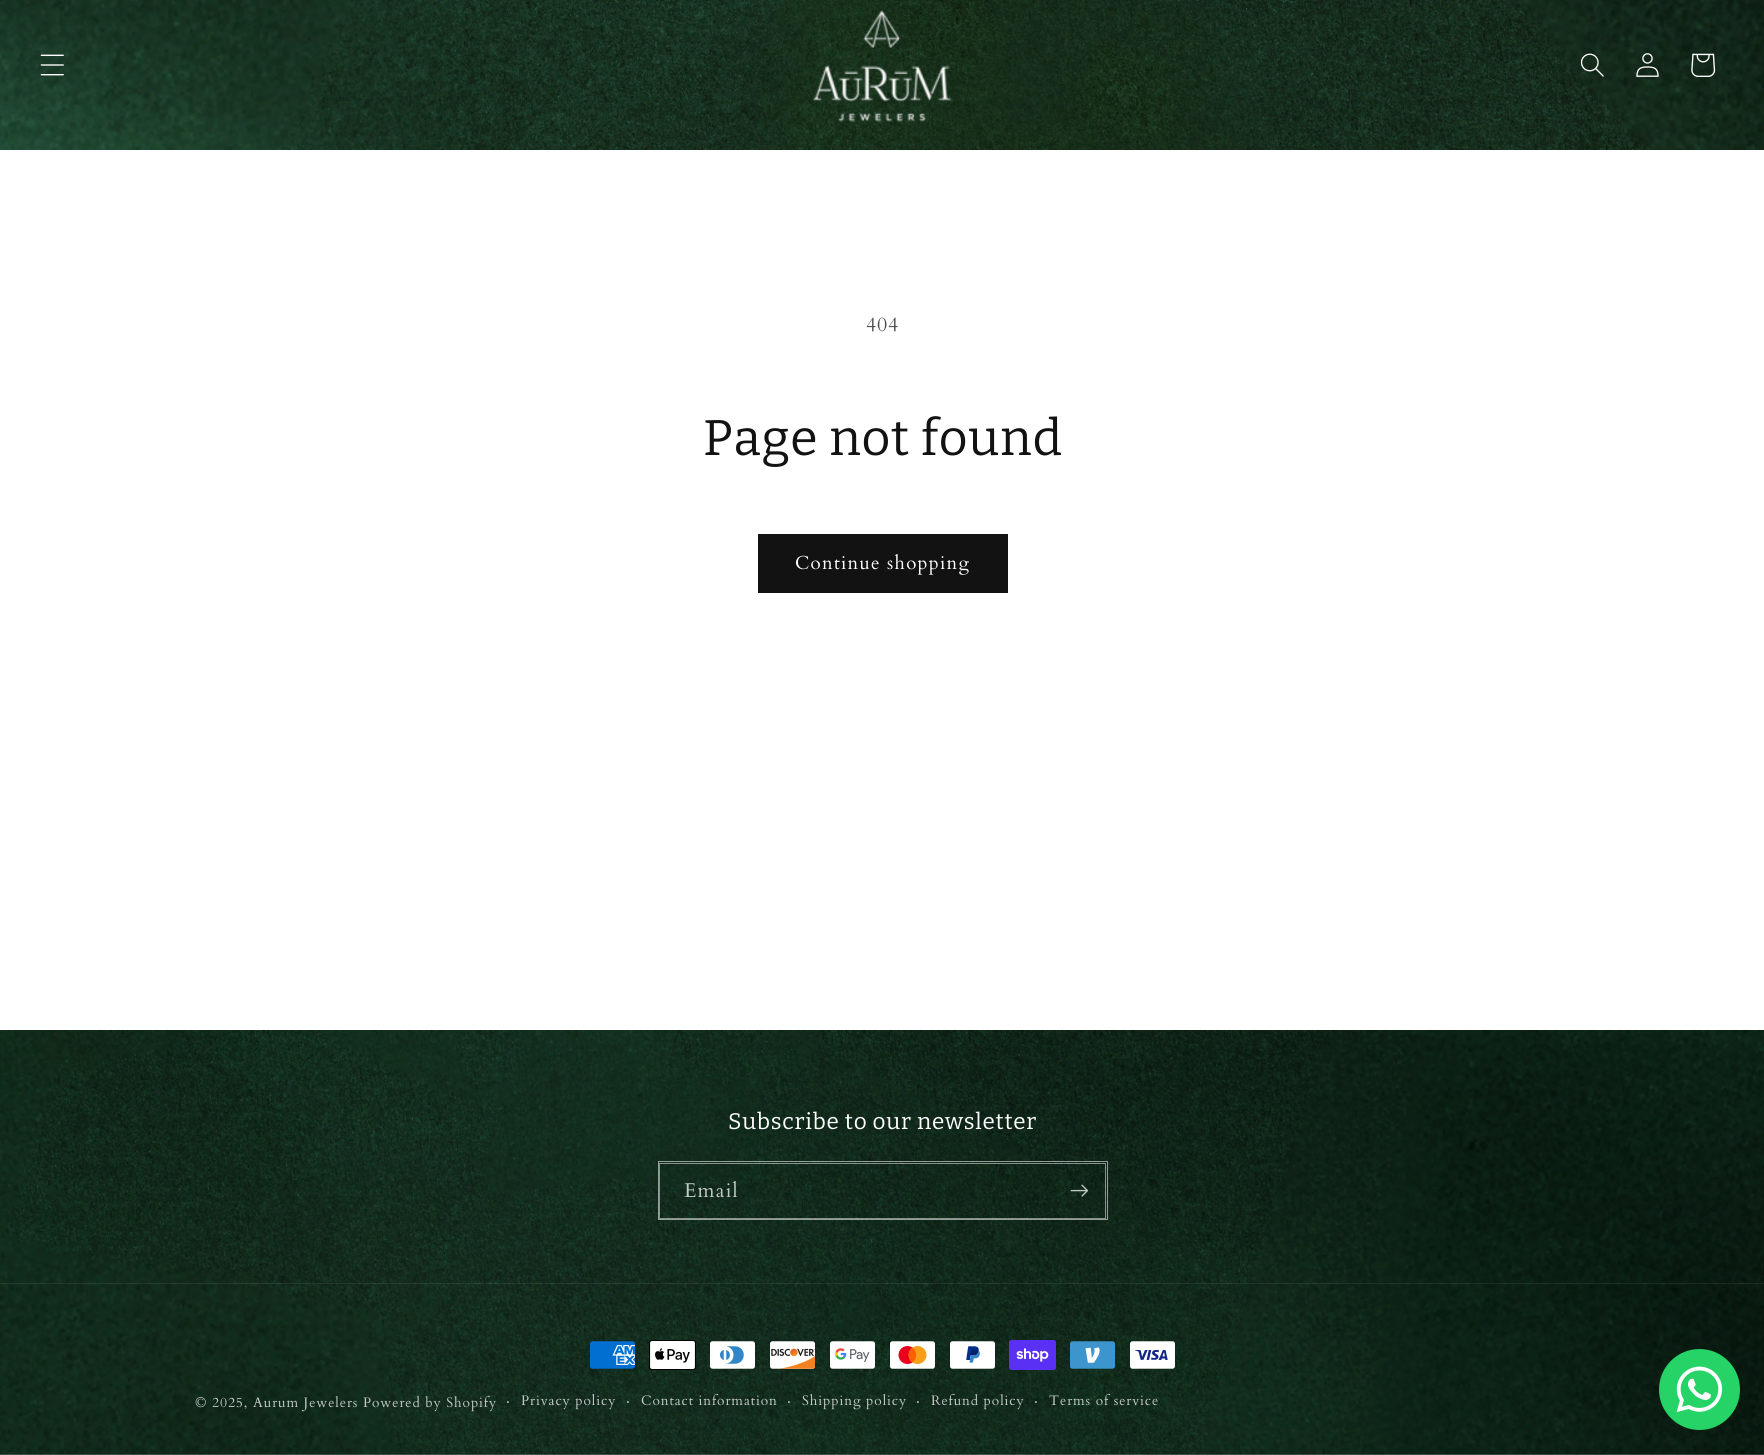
import math
import cairocffi as cairo

surface = cairo.ImageSurface(cairo.FORMAT_RGB24, 1764, 1455)
ctx = cairo.Context(surface)
options = cairo.FontOptions()
options.set_hint_metrics(cairo.HINT_METRICS_OFF)
options.set_hint_style(cairo.HINT_STYLE_NONE)
ctx.set_font_options(options)
ctx.set_miter_limit(4)


def rgb(r, g, b):
    ctx.set_source_rgb(r / 255, g / 255, b / 255)


def face(family, size, italic, bold):
    ctx.select_font_face(family, cairo.FONT_SLANT_ITALIC if italic else cairo.FONT_SLANT_NORMAL, cairo.FONT_WEIGHT_BOLD if bold else cairo.FONT_WEIGHT_NORMAL)
    ctx.set_font_size(size)


def tracked(x, y, s, letter, word):
    ctx.move_to(x, y)
    for ch in s:
        ctx.show_text(ch)
        ctx.rel_move_to(letter + word * (ch == ' '), 0)


def rect(x, y, w, h):
    ctx.rectangle(x, y, w, h)
    ctx.fill()


def image(path, x, y, w, h):
    ctx.save()
    ctx.set_source_surface(cairo.ImageSurface.create_from_png(path), x, y)
    ctx.rectangle(x, y, w, h)
    ctx.fill()
    ctx.restore()


rgb(255, 255, 255)
ctx.paint()
image('image0.png', 0, 0, 1764, 150)
image('image1.png', 40, 54, 24, 22)
image('image2.png', 813, 10, 139, 112)
image('image3.png', 1580, 53, 24, 24)
image('image4.png', 1636, 53, 23, 24)
image('image5.png', 1691, 53, 25, 24)
face('Cardo', 20, 0, 0)
rgb(77, 77, 77)
tracked(866, 331, '404', 0.75, 0)
face('Bitter', 50, 0, 0)
rgb(18, 18, 18)
tracked(703, 455, 'Page not found', 0.75, 0)
rect(758, 534, 250, 59)
face('Cardo', 18.75, 0, 0)
rgb(255, 255, 255)
tracked(795, 569, 'Continue shopping', 1.25, 0)
image('image6.png', 0, 1030, 1764, 425)
face('Bitter', 22.5, 0, 0)
tracked(728, 1129, 'Subscribe to our newsletter', 0.75, 0)
ctx.rectangle(659.5, 1163.5, 446, 55)
ctx.set_source_rgba(1, 1, 1, 0.5)
ctx.set_line_width(1)
ctx.stroke()
ctx.rectangle(658.5, 1161.5, 449, 58)
ctx.set_source_rgba(1, 1, 1, 0.55)
ctx.stroke()
face('Cardo', 20, 0, 0)
rgb(196, 202, 199)
tracked(684, 1197, 'Email', 1.25, 0)
image('image7.png', 1070, 1184, 18, 13)
ctx.set_source_rgba(1, 1, 1, 0.08)
rect(0, 1283, 1764, 1)
image('image8.png', 589, 1341, 46, 28)
image('image9.png', 649, 1340, 47, 30)
image('image10.png', 710, 1340, 45, 30)
image('image11.png', 770, 1341, 46, 29)
image('image12.png', 830, 1341, 45, 28)
image('image13.png', 889, 1340, 46, 29)
image('image14.png', 950, 1341, 45, 28)
image('image15.png', 1009, 1340, 47, 30)
image('image16.png', 1070, 1341, 45, 28)
image('image17.png', 1130, 1341, 45, 28)
face('Cardo', 13.75, 0, 0)
rgb(196, 202, 199)
tracked(195, 1407, '© 2025,', 0.9, 0)
tracked(253, 1407, 'Aurum Jewelers', 0.9, 0)
tracked(363, 1407, 'Powered by Shopify', 0.9, 0)
face('Cardo', 15, 0, 0)
tracked(506, 1407, '·', 0.9, 0)
face('Cardo', 13.75, 0, 0)
tracked(521, 1405, 'Privacy policy', 0.9, 0)
face('Cardo', 15, 0, 0)
tracked(626, 1407, '·', 0.9, 0)
face('Cardo', 13.75, 0, 0)
tracked(641, 1405, 'Contact information', 0.9, 0)
face('Cardo', 15, 0, 0)
tracked(787, 1407, '·', 0.9, 0)
face('Cardo', 13.75, 0, 0)
tracked(802, 1405, 'Shipping policy', 0.9, 0)
face('Cardo', 15, 0, 0)
tracked(916, 1407, '·', 0.9, 0)
face('Cardo', 13.75, 0, 0)
tracked(931, 1405, 'Refund policy', 0.9, 0)
face('Cardo', 15, 0, 0)
tracked(1034, 1407, '·', 0.9, 0)
face('Cardo', 13.75, 0, 0)
tracked(1049, 1405, 'Terms of service', 0.9, 0)
image('image18.png', 1659, 1349, 81, 81)
surface.write_to_png('render.png')
